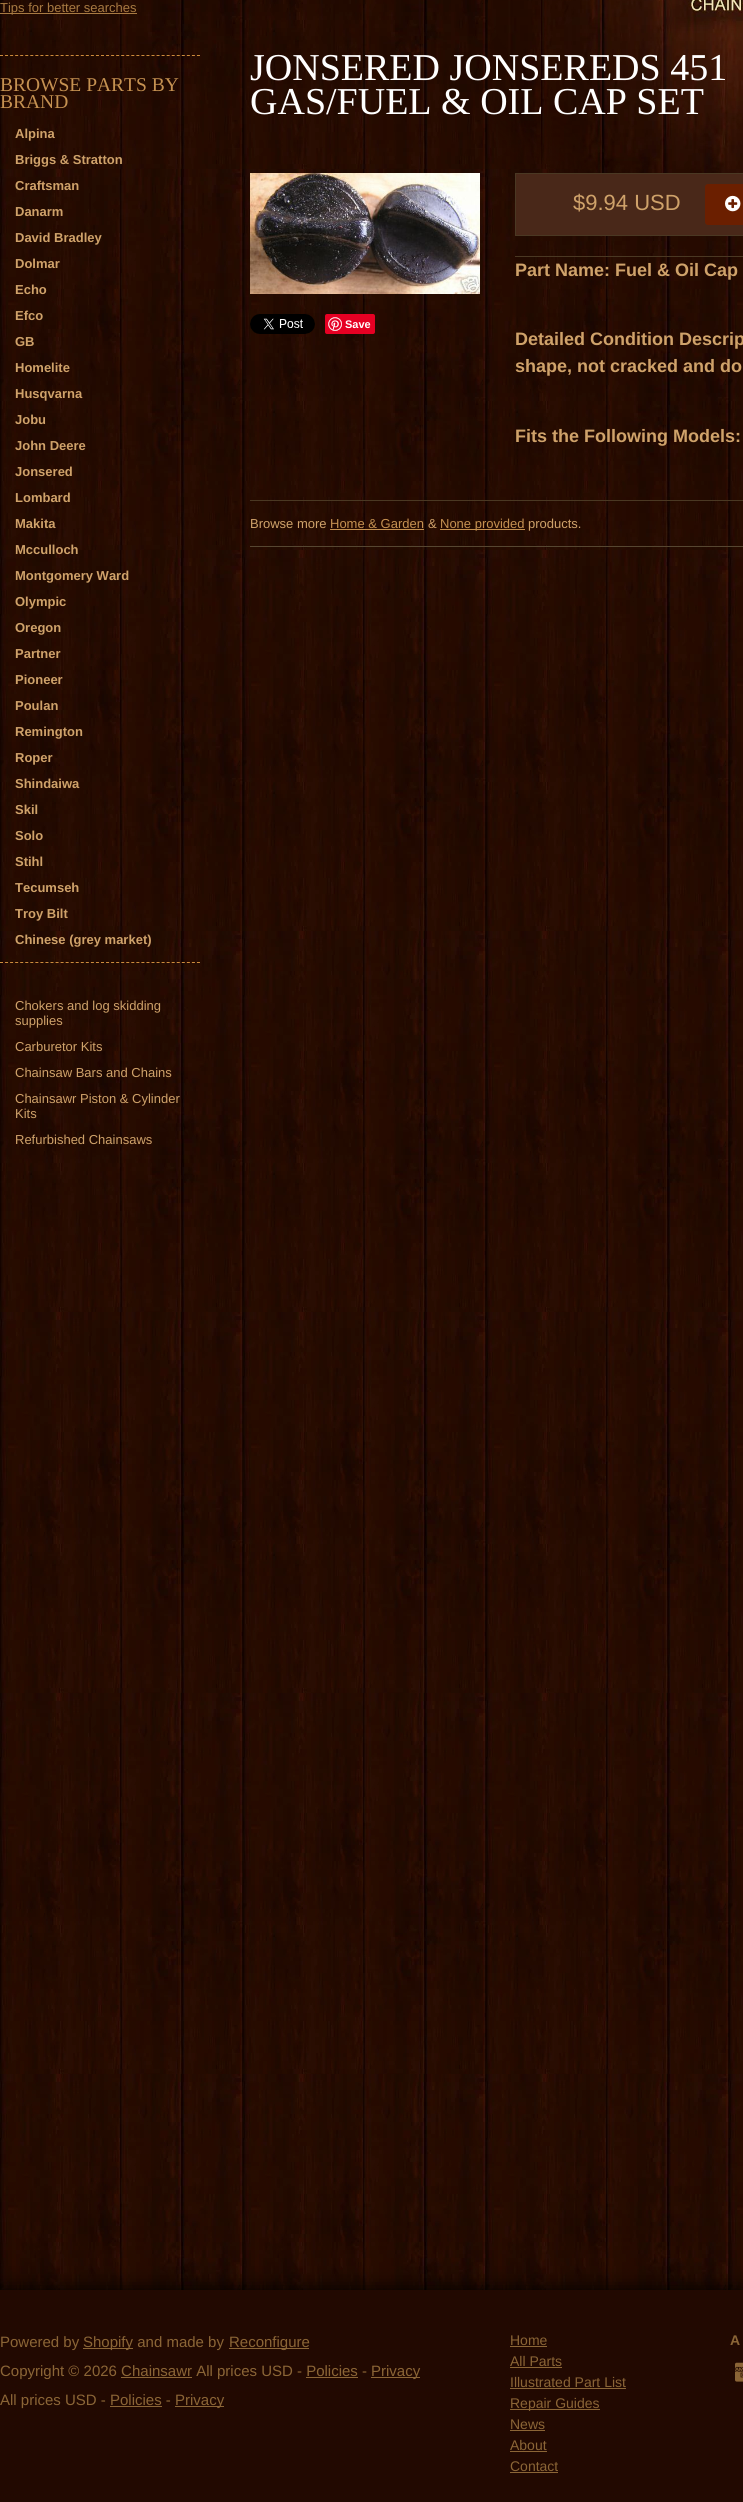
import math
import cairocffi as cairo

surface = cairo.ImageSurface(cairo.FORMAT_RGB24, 743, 2502)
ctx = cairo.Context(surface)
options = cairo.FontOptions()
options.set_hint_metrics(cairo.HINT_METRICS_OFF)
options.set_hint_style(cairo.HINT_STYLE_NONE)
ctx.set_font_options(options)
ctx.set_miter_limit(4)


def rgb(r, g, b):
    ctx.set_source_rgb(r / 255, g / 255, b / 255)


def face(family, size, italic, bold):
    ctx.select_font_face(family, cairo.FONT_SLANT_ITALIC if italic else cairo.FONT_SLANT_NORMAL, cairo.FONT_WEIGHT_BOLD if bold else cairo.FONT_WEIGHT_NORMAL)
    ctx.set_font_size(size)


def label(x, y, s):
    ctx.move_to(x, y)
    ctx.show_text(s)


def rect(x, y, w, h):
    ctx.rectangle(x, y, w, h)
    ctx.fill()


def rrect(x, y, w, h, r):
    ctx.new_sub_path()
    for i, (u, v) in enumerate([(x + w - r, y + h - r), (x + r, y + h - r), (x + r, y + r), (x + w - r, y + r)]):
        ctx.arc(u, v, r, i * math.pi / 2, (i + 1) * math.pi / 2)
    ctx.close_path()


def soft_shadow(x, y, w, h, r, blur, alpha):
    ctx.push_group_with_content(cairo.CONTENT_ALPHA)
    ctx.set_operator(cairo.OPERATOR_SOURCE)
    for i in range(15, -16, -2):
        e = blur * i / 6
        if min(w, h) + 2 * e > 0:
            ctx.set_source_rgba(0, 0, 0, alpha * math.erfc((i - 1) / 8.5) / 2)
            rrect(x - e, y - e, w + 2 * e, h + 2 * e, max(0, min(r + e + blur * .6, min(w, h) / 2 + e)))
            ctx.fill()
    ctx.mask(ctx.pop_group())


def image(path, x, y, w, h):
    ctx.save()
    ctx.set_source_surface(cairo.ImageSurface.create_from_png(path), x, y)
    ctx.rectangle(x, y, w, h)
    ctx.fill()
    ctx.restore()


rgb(255, 255, 255)
ctx.paint()
image('image0.png', 0, 0, 743, 2290)
rgb(168, 122, 66)
rect(0, 13, 137, 1)
face('Liberation Sans', 13, 0, 0)
label(0, 12, 'Tips for better searches')
image('image1.png', 488, 0, 255, 186)
ctx.new_path()
ctx.move_to(0, 55.5)
ctx.line_to(200, 55.5)
rgb(204, 139, 60)
ctx.set_line_width(1)
ctx.set_dash([3, 2.05])
ctx.stroke()
face('Liberation Serif', 19.5, 0, 0)
rgb(197, 145, 81)
label(0, 91, 'BROWSE PARTS BY')
label(0, 108, 'BRAND')
face('Liberation Sans', 13, 0, 1)
rgb(207, 162, 106)
label(15, 138, 'Alpina')
label(15, 164, 'Briggs & Stratton')
label(15, 190, 'Craftsman')
label(15, 216, 'Danarm')
label(15, 242, 'David Bradley')
label(15, 268, 'Dolmar')
label(15, 294, 'Echo')
label(15, 320, 'Efco')
label(15, 346, 'GB')
label(15, 372, 'Homelite')
label(15, 398, 'Husqvarna')
label(15, 424, 'Jobu')
label(15, 450, 'John Deere')
label(15, 476, 'Jonsered')
label(15, 502, 'Lombard')
label(15, 528, 'Makita')
label(15, 554, 'Mcculloch')
label(15, 580, 'Montgomery Ward')
label(15, 606, 'Olympic')
label(15, 632, 'Oregon')
label(15, 658, 'Partner')
label(15, 684, 'Pioneer')
label(15, 710, 'Poulan')
label(15, 736, 'Remington')
label(15, 762, 'Roper')
label(15, 788, 'Shindaiwa')
label(15, 814, 'Skil')
label(15, 840, 'Solo')
label(15, 866, 'Stihl')
label(15, 892, 'Tecumseh')
label(15, 918, 'Troy Bilt')
label(15, 944, 'Chinese (grey market)')
ctx.new_path()
ctx.move_to(0, 962.5)
ctx.line_to(200, 962.5)
rgb(204, 139, 60)
ctx.stroke()
face('Liberation Sans', 13, 0, 0)
rgb(207, 162, 106)
label(15, 1010, 'Chokers and log skidding')
label(15, 1025, 'supplies')
label(15, 1051, 'Carburetor Kits')
label(15, 1077, 'Chainsaw Bars and Chains')
label(15, 1103, 'Chainsawr Piston & Cylinder')
label(15, 1118, 'Kits')
label(15, 1144, 'Refurbished Chainsaws')
face('Liberation Serif', 38, 0, 0)
rgb(255, 255, 255)
label(250, 80, 'JONSERED JONSEREDS 451')
label(250, 114, 'GAS/FUEL & OIL CAP SET')
image('image2.png', 250, 173, 230, 121)
image('image3.png', 250, 314, 65, 20)
rgb(230, 0, 35)
rrect(325, 314, 50, 20, 2)
ctx.fill()
image('image4.png', 328, 317, 14, 14)
face('Liberation Sans', 11, 0, 1)
rgb(255, 255, 255)
label(345, 328, 'Save')
rgb(73, 40, 25)
ctx.rectangle(515.5, 173.5, 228, 62)
ctx.fill_preserve()
rgb(74, 56, 35)
ctx.set_dash([])
ctx.stroke()
face('Liberation Sans', 22, 0, 0)
rgb(207, 162, 106)
label(573, 210, '$9.94 USD')
rgb(107, 31, 0)
rrect(705, 184, 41, 41, 3)
ctx.fill()
image('image5.png', 725, 195, 16, 17)
rgb(74, 56, 35)
rect(515, 256, 228, 1)
face('Liberation Sans', 18, 0, 1)
rgb(207, 162, 106)
label(515, 276, 'Part Name: Fuel & Oil Cap')
label(515, 345, 'Detailed Condition Descrip')
label(515, 372, 'shape, not cracked and do')
label(515, 442, 'Fits the Following Models:')
rgb(74, 56, 35)
rect(250, 500, 493, 1)
rgb(86, 70, 49)
rect(250, 546, 493, 1)
face('Liberation Sans', 13, 0, 0)
rgb(207, 162, 106)
label(250, 528, 'Browse more')
rgb(197, 145, 81)
label(330, 528, 'Home & Garden')
rect(330, 529, 94, 1)
rgb(207, 162, 106)
label(428, 528, '&')
rgb(197, 145, 81)
rect(440, 529, 85, 1)
label(440, 528, 'None provided')
rgb(207, 162, 106)
label(528, 528, 'products.')
rgb(0, 0, 0)
soft_shadow(0, 2290, 743, 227, 0, 10, 1)
rgb(34, 9, 1)
rect(0, 2290, 743, 212)
face('Liberation Sans', 15, 0, 0)
rgb(139, 101, 54)
label(0, 2347, 'Powered by')
rect(83, 2348, 50, 1)
label(83, 2347, 'Shopify and made by')
rect(229, 2348, 80, 1)
label(229, 2347, 'Reconfigure')
label(0, 2376, 'Copyright © 2026 Chainsawr All prices USD - Policies -')
rect(371, 2377, 49, 1)
label(371, 2376, 'Privacy')
rect(121, 2377, 71, 1)
rect(306, 2377, 52, 1)
label(0, 2405, 'All prices USD - Policies -')
rect(175, 2406, 49, 1)
label(175, 2405, 'Privacy')
rect(110, 2406, 52, 1)
face('Liberation Sans', 14, 0, 0)
label(510, 2345, 'Home')
rect(510, 2346, 37, 1)
label(510, 2366, 'All Parts')
rect(510, 2367, 52, 1)
label(510, 2387, 'Illustrated Part List')
rect(510, 2388, 116, 1)
rect(510, 2409, 90, 1)
label(510, 2408, 'Repair Guides')
label(510, 2429, 'News')
rect(510, 2430, 35, 1)
label(510, 2450, 'About')
rect(510, 2451, 37, 1)
label(510, 2471, 'Contact')
rect(510, 2472, 48, 1)
face('Liberation Sans', 14, 0, 1)
label(730, 2345, 'A')
image('image6.png', 735, 2362, 8, 20)
surface.write_to_png('render.png')
